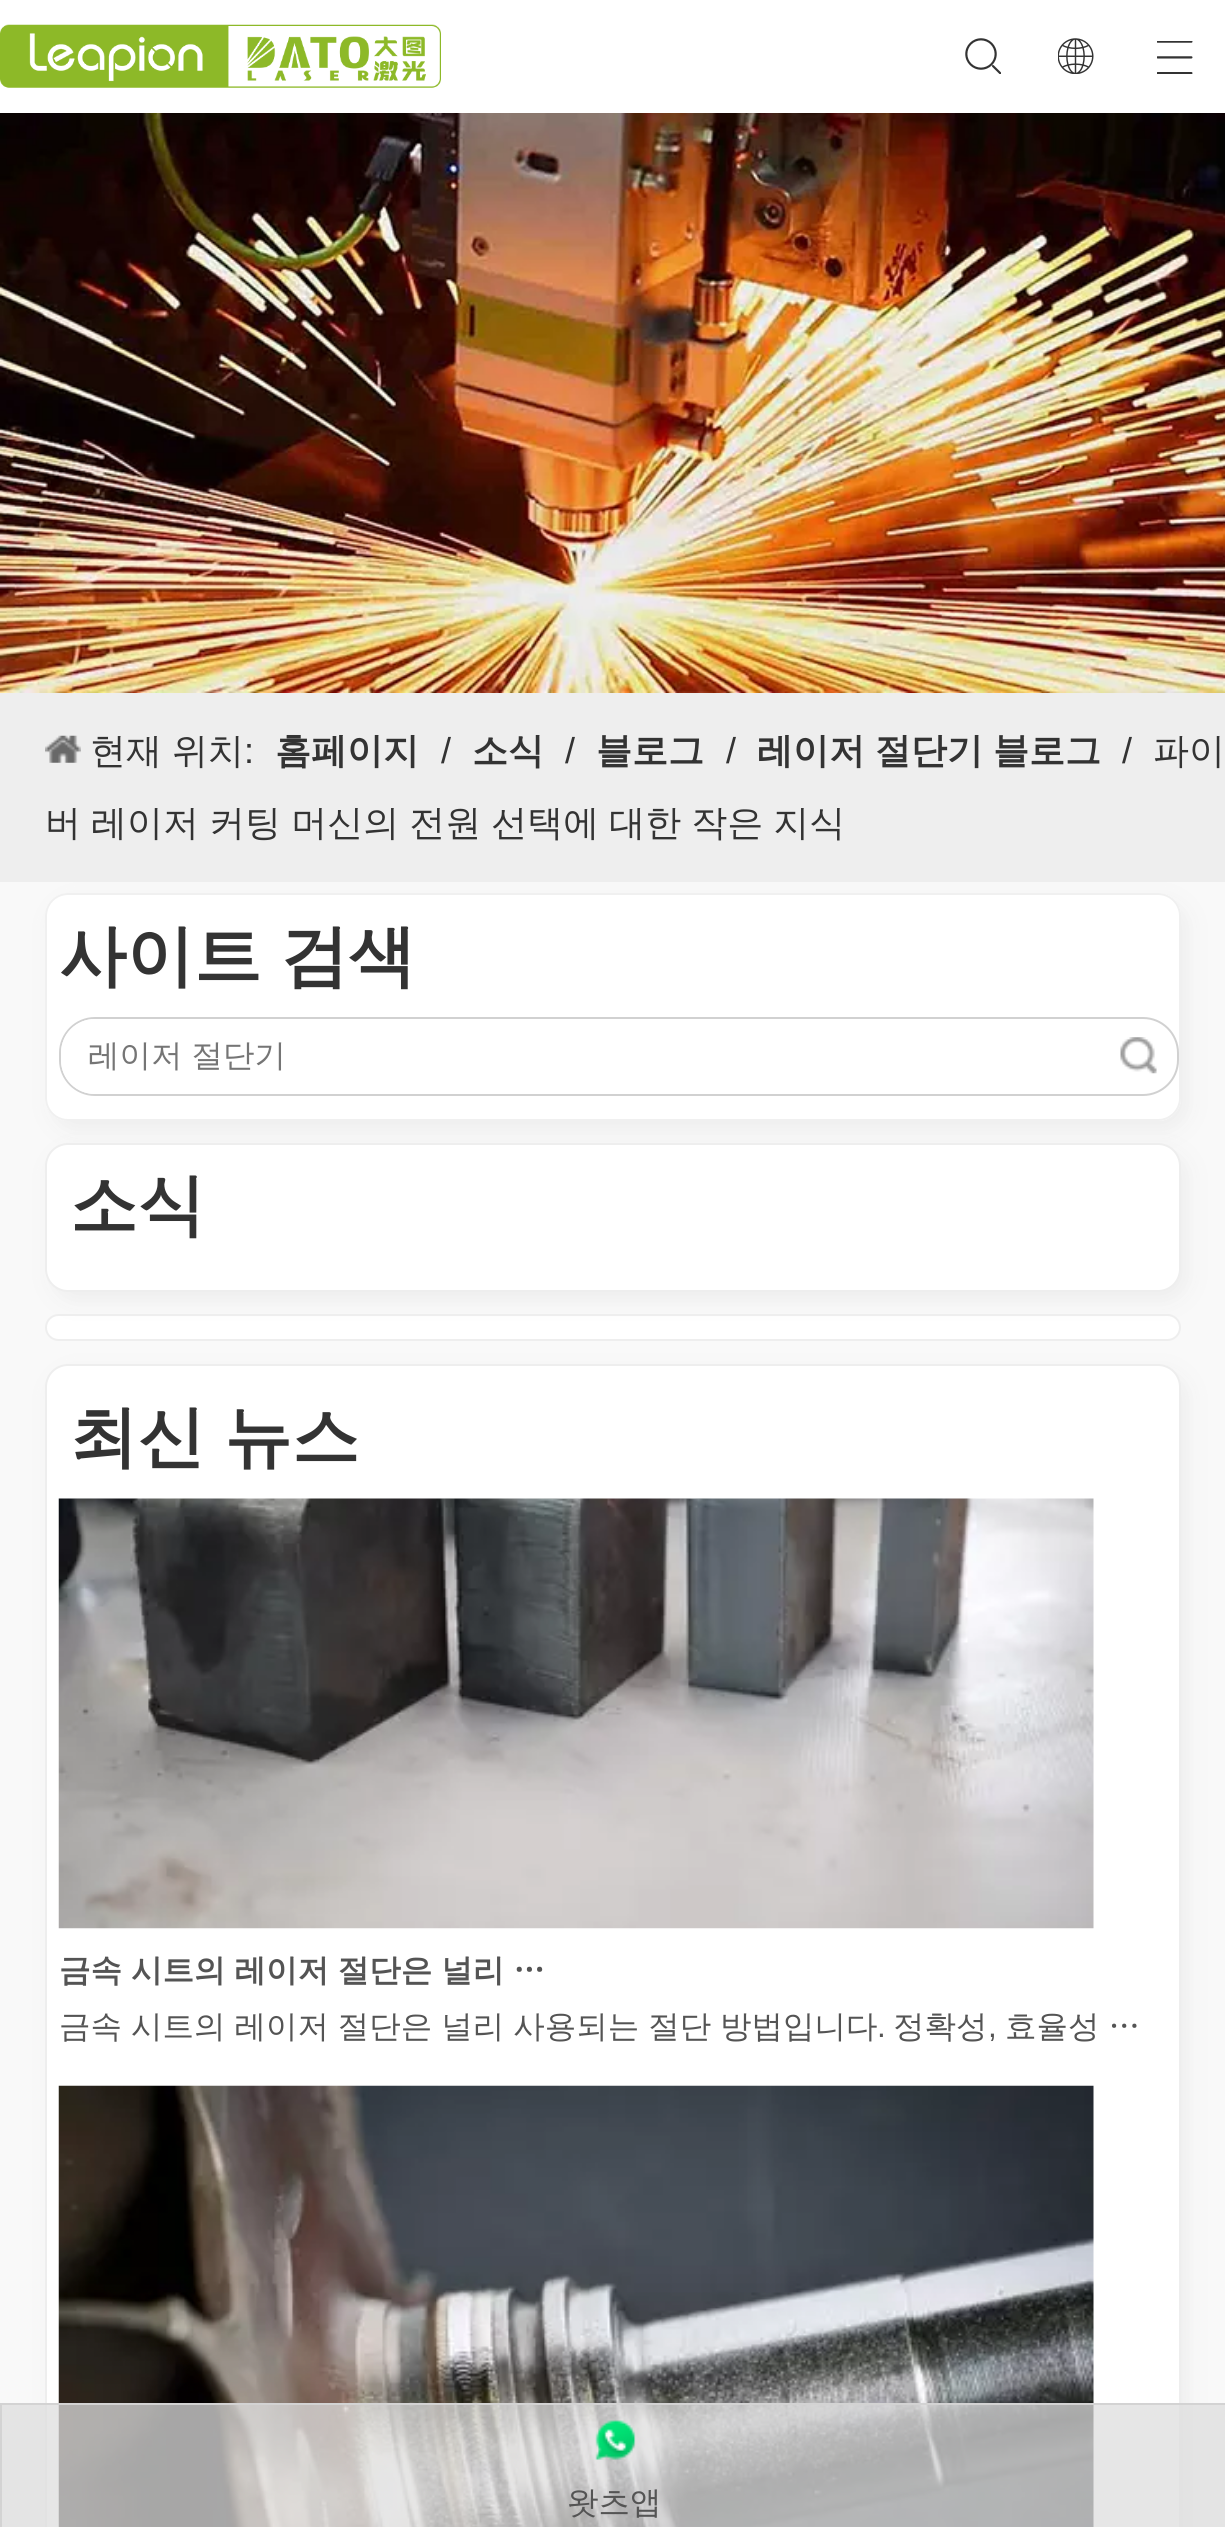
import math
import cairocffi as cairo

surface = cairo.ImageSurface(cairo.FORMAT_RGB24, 1225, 2527)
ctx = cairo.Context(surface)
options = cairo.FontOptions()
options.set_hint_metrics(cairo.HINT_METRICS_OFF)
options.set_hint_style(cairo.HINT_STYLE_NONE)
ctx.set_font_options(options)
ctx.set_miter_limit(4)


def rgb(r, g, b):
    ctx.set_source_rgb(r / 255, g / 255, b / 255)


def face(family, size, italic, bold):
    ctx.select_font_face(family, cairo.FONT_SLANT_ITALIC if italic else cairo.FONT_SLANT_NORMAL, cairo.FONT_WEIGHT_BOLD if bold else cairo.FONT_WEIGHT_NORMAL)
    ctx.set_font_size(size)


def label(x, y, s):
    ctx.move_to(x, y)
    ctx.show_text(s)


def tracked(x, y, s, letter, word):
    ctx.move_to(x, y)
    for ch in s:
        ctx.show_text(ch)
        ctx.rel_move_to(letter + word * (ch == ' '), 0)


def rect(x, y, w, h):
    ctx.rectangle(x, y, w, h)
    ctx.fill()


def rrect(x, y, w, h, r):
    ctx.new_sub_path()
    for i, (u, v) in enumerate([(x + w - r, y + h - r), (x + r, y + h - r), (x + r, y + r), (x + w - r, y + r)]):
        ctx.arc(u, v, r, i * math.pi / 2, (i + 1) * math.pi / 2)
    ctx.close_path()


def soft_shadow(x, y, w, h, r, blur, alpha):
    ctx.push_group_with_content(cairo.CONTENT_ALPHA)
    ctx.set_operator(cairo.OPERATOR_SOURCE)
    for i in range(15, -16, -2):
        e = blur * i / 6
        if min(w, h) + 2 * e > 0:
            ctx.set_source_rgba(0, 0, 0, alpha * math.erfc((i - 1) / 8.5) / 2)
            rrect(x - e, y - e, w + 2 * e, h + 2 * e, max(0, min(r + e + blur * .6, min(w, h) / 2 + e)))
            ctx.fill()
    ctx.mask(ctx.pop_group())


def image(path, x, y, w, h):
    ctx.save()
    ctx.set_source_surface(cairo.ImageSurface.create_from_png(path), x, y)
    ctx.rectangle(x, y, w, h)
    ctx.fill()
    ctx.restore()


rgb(238, 238, 238)
ctx.paint()
rgb(255, 255, 255)
rect(0, 0, 1225, 113)
image('image0.png', 0, 24, 441, 64)
image('image1.png', 965, 38, 36, 36)
image('image2.png', 1058, 38, 36, 36)
image('image3.png', 1157, 41, 36, 33)
image('image4.png', 0, 113, 1225, 580)
image('image5.png', 45, 735, 36, 28)
face('WenQuanYi Zen Hei Medium', 36, 0, 0)
rgb(51, 51, 51)
tracked(90, 763, '현재 위치', 0, -0.75)
face('Liberation Sans', 36, 0, 0)
label(244, 763, ':')
face('WenQuanYi Zen Hei', 36, 0, 1)
label(275, 763, '홈페이지')
face('Liberation Sans', 36, 0, 0)
label(441, 763, '/')
face('WenQuanYi Zen Hei', 36, 0, 1)
label(472, 763, '소식')
face('Liberation Sans', 36, 0, 0)
label(565, 763, '/')
face('WenQuanYi Zen Hei', 36, 0, 1)
label(596, 763, '블로그')
face('Liberation Sans', 36, 0, 0)
label(726, 763, '/')
face('WenQuanYi Zen Hei', 36, 0, 1)
tracked(757, 763, '레이저 절단기 블로그', 0, -0.75)
face('Liberation Sans', 36, 0, 0)
label(1122, 763, '/')
face('WenQuanYi Zen Hei Medium', 36, 0, 0)
label(1153, 763, '파이')
tracked(45, 835, '버 레이저 커팅 머신의 전원 선택에 대한 작은 지식', 0, -0.75)
rgb(249, 249, 249)
rect(0, 882, 1225, 1645)
rgb(238, 238, 238)
soft_shadow(52, 902, 1136, 228, 23, 11, 1)
rgb(255, 255, 255)
rrect(45, 893, 1136, 228, 23)
ctx.fill()
rrect(46, 894, 1134, 226, 22)
ctx.set_source_rgba(0.933, 0.933, 0.933, 0.87)
ctx.stroke()
face('WenQuanYi Zen Hei', 67.5, 0, 1)
rgb(51, 51, 51)
tracked(59, 979, '사이트 검색', 0, -1)
rrect(60, 1018, 1118, 77, 35)
rgb(209, 209, 209)
ctx.stroke()
rgb(255, 255, 255)
ctx.new_path()
ctx.move_to(95, 1019)
ctx.line_to(1010, 1019)
ctx.line_to(1010, 1094)
ctx.line_to(95, 1094)
ctx.curve_to(76, 1094, 61, 1079, 61, 1060)
ctx.line_to(61, 1053)
ctx.curve_to(61, 1034, 76, 1019, 95, 1019)
ctx.close_path()
ctx.fill()
face('WenQuanYi Zen Hei Medium', 31.5, 0, 0)
rgb(117, 117, 117)
tracked(88, 1066, '레이저 절단기', 0, -0.5)
image('image6.png', 1120, 1037, 37, 37)
rgb(255, 255, 255)
rrect(46, 1315, 1134, 25, 12.5)
ctx.fill_preserve()
rgb(238, 238, 238)
ctx.stroke()
rgb(238, 238, 238)
soft_shadow(52, 1152, 1136, 149, 23, 11, 1)
rgb(255, 255, 255)
rrect(46, 1144, 1134, 147, 22)
ctx.fill_preserve()
rgb(238, 238, 238)
ctx.stroke()
face('WenQuanYi Zen Hei', 67.5, 0, 1)
rgb(51, 51, 51)
label(70, 1228, '소식')
rgb(238, 238, 238)
soft_shadow(52, 1373, 1136, 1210, 23, 11, 1)
rgb(255, 255, 255)
rrect(46, 1365, 1134, 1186, 22)
ctx.fill_preserve()
rgb(238, 238, 238)
ctx.stroke()
rgb(51, 51, 51)
tracked(70, 1460, '최신 뉴스', 0, -1)
image('image7.png', 58, 1498, 1036, 431)
face('WenQuanYi Zen Hei', 31.5, 0, 1)
rgb(84, 84, 84)
tracked(59, 1981, '금속 시트의 레이저 절단은 널리 …', 0, -0.5)
face('WenQuanYi Zen Hei Medium', 31.5, 0, 0)
tracked(59, 2037, '금속 시트의 레이저 절단은 널리 사용되는 절단 방법입니다', 0, -0.5)
face('Liberation Sans', 31.5, 0, 0)
label(877, 2037, '.')
face('WenQuanYi Zen Hei Medium', 31.5, 0, 0)
label(893, 2037, '정확성')
face('Liberation Sans', 31.5, 0, 0)
label(988, 2037, ',')
face('WenQuanYi Zen Hei Medium', 31.5, 0, 0)
tracked(1005, 2037, '효율성 …', 0, -0.5)
image('image8.png', 58, 2085, 1036, 442)
ctx.set_source_rgba(0.867, 0.867, 0.867, 0.75)
rect(2, 2405, 1223, 122)
rgb(211, 211, 211)
rect(0, 2403, 1225, 2)
rect(0, 2405, 2, 122)
image('image9.png', 595, 2420, 41, 40)
rgb(84, 84, 84)
label(567, 2513, '왓츠앱')
surface.write_to_png('render.png')
